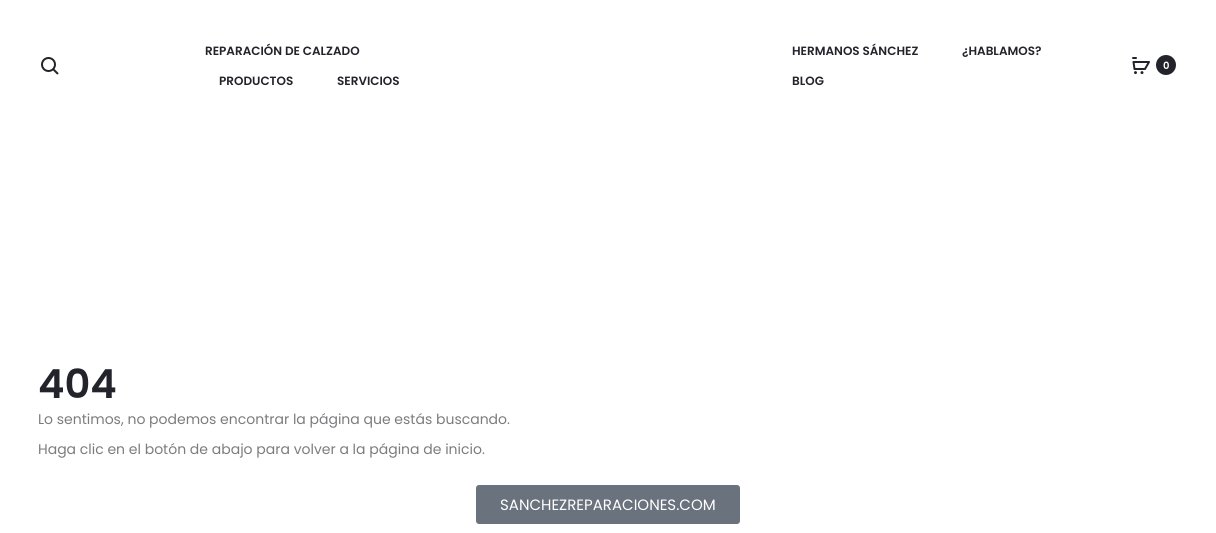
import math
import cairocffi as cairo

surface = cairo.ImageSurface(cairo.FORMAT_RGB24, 1216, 533)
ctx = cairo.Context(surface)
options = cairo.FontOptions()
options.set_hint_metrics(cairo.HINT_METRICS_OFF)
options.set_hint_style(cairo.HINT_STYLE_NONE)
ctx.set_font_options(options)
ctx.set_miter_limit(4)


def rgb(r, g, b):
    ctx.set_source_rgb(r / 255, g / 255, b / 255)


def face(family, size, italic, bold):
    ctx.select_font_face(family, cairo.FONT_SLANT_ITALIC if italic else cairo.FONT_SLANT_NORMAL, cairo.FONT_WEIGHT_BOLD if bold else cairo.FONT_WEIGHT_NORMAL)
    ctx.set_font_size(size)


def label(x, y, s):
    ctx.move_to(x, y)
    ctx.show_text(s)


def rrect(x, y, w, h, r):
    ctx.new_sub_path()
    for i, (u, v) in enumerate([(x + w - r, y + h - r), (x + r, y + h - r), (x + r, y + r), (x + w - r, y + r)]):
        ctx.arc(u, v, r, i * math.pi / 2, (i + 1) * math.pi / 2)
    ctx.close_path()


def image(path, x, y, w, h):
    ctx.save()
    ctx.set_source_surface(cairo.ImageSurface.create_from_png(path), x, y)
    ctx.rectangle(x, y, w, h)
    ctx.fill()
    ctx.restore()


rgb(255, 255, 255)
ctx.paint()
ctx.arc(48.5, 64.5, 6.5, 0, 2 * math.pi)
rgb(35, 35, 44)
ctx.stroke()
ctx.new_path()
ctx.move_to(53, 69)
ctx.line_to(58, 74)
ctx.stroke()
face('Poppins SemiBold', 12, 0, 0)
label(205, 55, 'REPARACIÓN DE CALZADO')
label(219, 85, 'PRODUCTOS')
label(337, 85, 'SERVICIOS')
label(792, 55, 'HERMANOS SÁNCHEZ')
label(962, 55, '¿HABLAMOS?')
label(792, 85, 'BLOG')
image('image0.png', 1132, 57, 18, 18)
ctx.arc(1166, 65, 10, 0, 2 * math.pi)
ctx.fill()
face('Poppins SemiBold', 10, 0, 0)
rgb(255, 255, 255)
label(1163, 69, '0')
face('Poppins SemiBold', 40, 0, 0)
rgb(35, 35, 44)
label(38, 398, '404')
face('Poppins', 14, 0, 0)
rgb(124, 124, 128)
label(38, 424, 'Lo sentimos, no podemos encontrar la página que estás buscando.')
label(38, 454, 'Haga clic en el botón de abajo para volver a la página de inicio.')
rgb(105, 114, 125)
rrect(476, 485, 264, 39, 3)
ctx.fill()
face('Poppins', 15, 0, 0)
rgb(255, 255, 255)
label(500, 510, 'SANCHEZREPARACIONES.COM')
surface.write_to_png('render.png')
